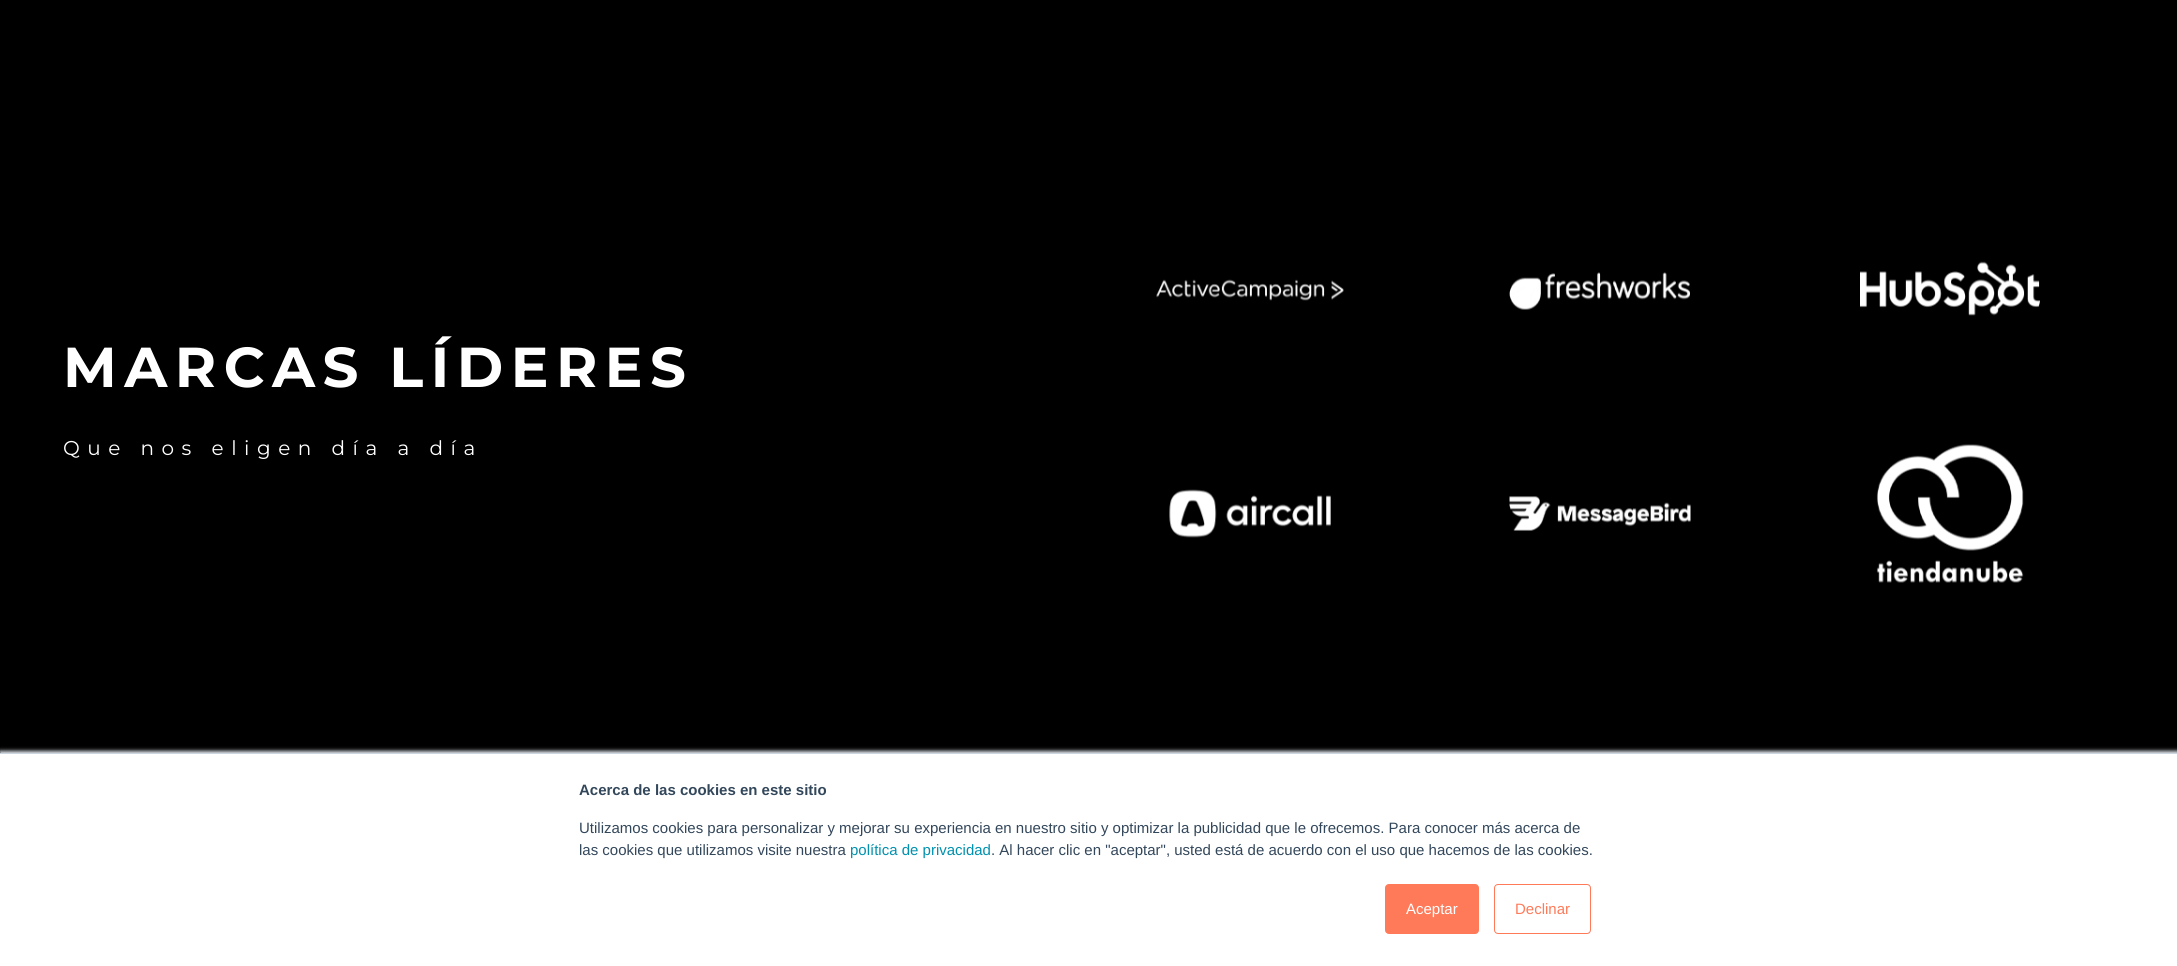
import math
import cairocffi as cairo

surface = cairo.ImageSurface(cairo.FORMAT_RGB24, 2177, 966)
ctx = cairo.Context(surface)
options = cairo.FontOptions()
options.set_hint_metrics(cairo.HINT_METRICS_OFF)
options.set_hint_style(cairo.HINT_STYLE_NONE)
ctx.set_font_options(options)
ctx.set_miter_limit(4)


def rgb(r, g, b):
    ctx.set_source_rgb(r / 255, g / 255, b / 255)


def face(family, size, italic, bold):
    ctx.select_font_face(family, cairo.FONT_SLANT_ITALIC if italic else cairo.FONT_SLANT_NORMAL, cairo.FONT_WEIGHT_BOLD if bold else cairo.FONT_WEIGHT_NORMAL)
    ctx.set_font_size(size)


def label(x, y, s):
    ctx.move_to(x, y)
    ctx.show_text(s)


def tracked(x, y, s, letter, word):
    ctx.move_to(x, y)
    for ch in s:
        ctx.show_text(ch)
        ctx.rel_move_to(letter + word * (ch == ' '), 0)


def rect(x, y, w, h):
    ctx.rectangle(x, y, w, h)
    ctx.fill()


def rrect(x, y, w, h, r):
    ctx.new_sub_path()
    for i, (u, v) in enumerate([(x + w - r, y + h - r), (x + r, y + h - r), (x + r, y + r), (x + w - r, y + r)]):
        ctx.arc(u, v, r, i * math.pi / 2, (i + 1) * math.pi / 2)
    ctx.close_path()


def soft_shadow(x, y, w, h, r, blur, alpha):
    ctx.push_group_with_content(cairo.CONTENT_ALPHA)
    ctx.set_operator(cairo.OPERATOR_SOURCE)
    for i in range(15, -16, -2):
        e = blur * i / 6
        if min(w, h) + 2 * e > 0:
            ctx.set_source_rgba(0, 0, 0, alpha * math.erfc((i - 1) / 8.5) / 2)
            rrect(x - e, y - e, w + 2 * e, h + 2 * e, max(0, min(r + e + blur * .6, min(w, h) / 2 + e)))
            ctx.fill()
    ctx.mask(ctx.pop_group())


def image(path, x, y, w, h):
    ctx.save()
    ctx.set_source_surface(cairo.ImageSurface.create_from_png(path), x, y)
    ctx.rectangle(x, y, w, h)
    ctx.fill()
    ctx.restore()


rgb(0, 0, 0)
ctx.paint()
face('Montserrat', 56.25, 0, 1)
rgb(255, 255, 255)
tracked(63, 387, 'MARCAS LÍDERES', 7.5, 0)
face('Montserrat', 20, 0, 0)
tracked(63, 455, 'Que nos eligen día a día', 7.5, 0)
image('image0.png', 1156, 279, 188, 22)
image('image1.png', 1509, 272, 181, 38)
image('image2.png', 1860, 261, 180, 55)
image('image3.png', 1169, 489, 162, 49)
image('image4.png', 1509, 496, 182, 35)
image('image5.png', 1876, 444, 148, 139)
rgb(234, 240, 246)
soft_shadow(0, 751, 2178, 214, 0, 2, 1)
rgb(255, 255, 255)
rect(0, 754, 2177, 212)
rgb(203, 214, 226)
rect(0, 753, 2177, 1)
face('Liberation Sans', 15, 0, 1)
rgb(51, 71, 91)
label(579, 795, 'Acerca de las cookies en este sitio')
face('Liberation Sans', 15, 0, 0)
label(579, 833, 'Utilizamos cookies para personalizar y mejorar su experiencia en nuestro sitio y optimizar la publicidad que le ofrecemos. Para conocer más acerca de')
label(579, 855, 'las cookies que utilizamos visite nuestra')
rgb(0, 145, 174)
label(850, 855, 'política de privacidad')
rgb(51, 71, 91)
label(991, 855, '. Al hacer clic en "aceptar", usted está de acuerdo con el uso que hacemos de las cookies.')
rgb(255, 122, 89)
rrect(1385.5, 884.5, 93, 49, 3.5)
ctx.fill_preserve()
ctx.set_line_width(1)
ctx.stroke()
rgb(255, 255, 255)
label(1406, 914, 'Aceptar')
rrect(1494.5, 884.5, 96, 49, 3.5)
rgb(255, 122, 89)
ctx.stroke()
label(1515, 914, 'Declinar')
surface.write_to_png('render.png')
